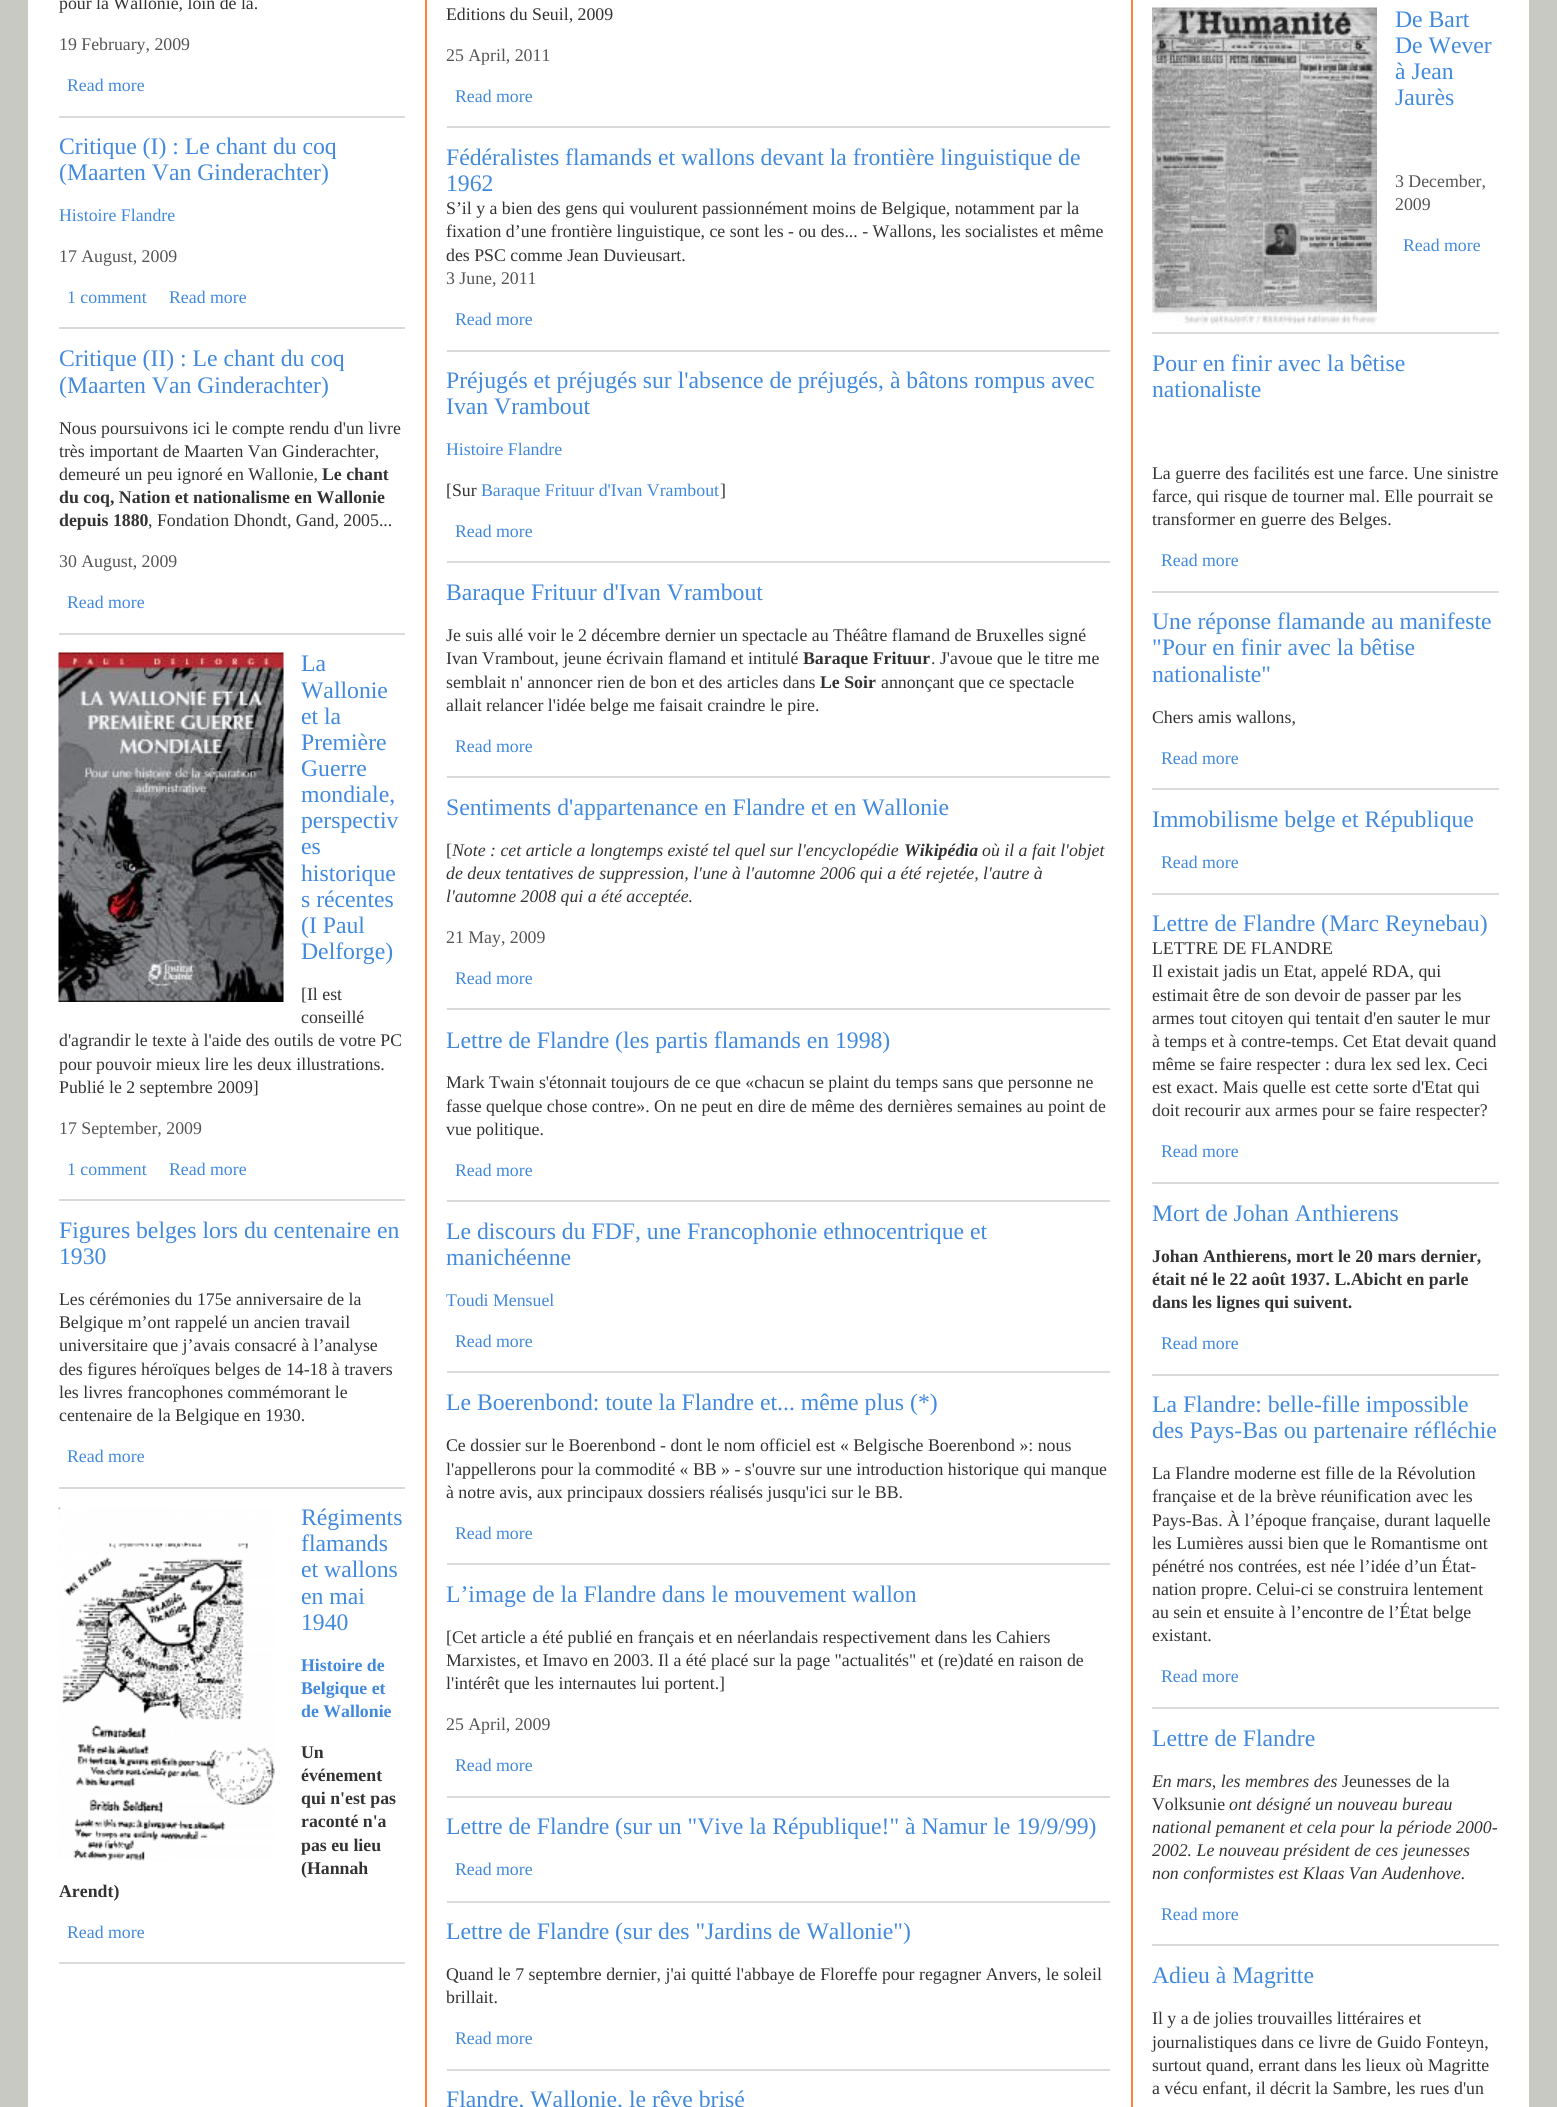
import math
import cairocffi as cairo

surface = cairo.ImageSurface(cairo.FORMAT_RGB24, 1557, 2107)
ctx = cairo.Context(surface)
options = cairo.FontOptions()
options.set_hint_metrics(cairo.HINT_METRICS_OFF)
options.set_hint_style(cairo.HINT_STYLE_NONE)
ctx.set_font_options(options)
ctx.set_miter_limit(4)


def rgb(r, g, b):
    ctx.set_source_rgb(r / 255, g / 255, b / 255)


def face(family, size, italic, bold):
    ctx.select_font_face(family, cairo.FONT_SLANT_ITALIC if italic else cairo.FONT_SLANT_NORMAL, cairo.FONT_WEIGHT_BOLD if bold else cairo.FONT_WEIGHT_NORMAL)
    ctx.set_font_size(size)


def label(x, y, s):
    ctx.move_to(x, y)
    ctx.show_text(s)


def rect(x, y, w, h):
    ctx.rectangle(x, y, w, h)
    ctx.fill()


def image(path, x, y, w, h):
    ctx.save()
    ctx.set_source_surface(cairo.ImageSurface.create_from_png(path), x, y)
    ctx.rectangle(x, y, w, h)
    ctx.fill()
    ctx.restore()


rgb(200, 201, 195)
ctx.paint()
rgb(255, 255, 255)
rect(28, 0, 1501, 2107)
rgb(218, 218, 218)
rect(59, 116, 346, 2)
face('Liberation Serif', 17.8, 0, 0)
rgb(51, 51, 51)
label(59, 9, 'pour la Wallonie, loin de là.')
rgb(85, 85, 85)
label(59, 50, '19 February, 2009')
rgb(65, 137, 221)
label(67, 91, 'Read more')
rgb(218, 218, 218)
rect(59, 327, 346, 2)
face('Liberation Serif', 23.7, 0, 0)
rgb(65, 137, 221)
label(59, 154, 'Critique (I) : Le chant du coq')
label(59, 180, '(Maarten Van Ginderachter)')
face('Liberation Serif', 17.8, 0, 0)
label(59, 221, 'Histoire Flandre')
rgb(85, 85, 85)
label(59, 262, '17 August, 2009')
rgb(65, 137, 221)
label(67, 303, '1 comment')
label(169, 303, 'Read more')
rgb(218, 218, 218)
rect(59, 633, 346, 2)
face('Liberation Serif', 23.7, 0, 0)
rgb(65, 137, 221)
label(59, 366, 'Critique (II) : Le chant du coq')
label(59, 393, '(Maarten Van Ginderachter)')
face('Liberation Serif', 17.8, 0, 0)
rgb(51, 51, 51)
label(59, 434, 'Nous poursuivons ici le compte rendu d\'un livre')
label(59, 457, 'très important de Maarten Van Ginderachter,')
label(59, 480, 'demeuré un peu ignoré en Wallonie,')
face('Liberation Serif', 17.8, 0, 1)
label(322, 480, 'Le chant')
label(59, 503, 'du coq, Nation et nationalisme en Wallonie')
label(59, 526, 'depuis 1880')
face('Liberation Serif', 17.8, 0, 0)
label(148, 526, ', Fondation Dhondt, Gand, 2005...')
rgb(85, 85, 85)
label(59, 567, '30 August, 2009')
rgb(65, 137, 221)
label(67, 608, 'Read more')
rgb(218, 218, 218)
rect(59, 1199, 346, 2)
image('image0.png', 58, 652, 226, 350)
face('Liberation Serif', 23.7, 0, 0)
rgb(65, 137, 221)
label(301, 671, 'La')
label(301, 698, 'Wallonie')
label(301, 724, 'et la')
label(301, 750, 'Première')
label(301, 776, 'Guerre')
label(301, 802, 'mondiale,')
label(301, 828, 'perspectiv')
label(301, 854, 'es')
label(301, 881, 'historique')
label(301, 907, 's récentes')
label(301, 933, '(I Paul')
label(301, 959, 'Delforge)')
face('Liberation Serif', 17.8, 0, 0)
rgb(51, 51, 51)
label(301, 1000, '[Il est')
label(301, 1023, 'conseillé')
label(59, 1046, 'd\'agrandir le texte à l\'aide des outils de votre PC')
label(59, 1070, 'pour pouvoir mieux lire les deux illustrations.')
label(59, 1093, 'Publié le 2 septembre 2009]')
rgb(85, 85, 85)
label(59, 1134, '17 September, 2009')
rgb(65, 137, 221)
label(67, 1175, '1 comment')
label(169, 1175, 'Read more')
rgb(218, 218, 218)
rect(59, 1487, 346, 2)
face('Liberation Serif', 23.7, 0, 0)
rgb(65, 137, 221)
label(59, 1238, 'Figures belges lors du centenaire en')
label(59, 1264, '1930')
face('Liberation Serif', 17.8, 0, 0)
rgb(51, 51, 51)
label(59, 1305, 'Les cérémonies du 175e anniversaire de la')
label(59, 1328, 'Belgique m’ont rappelé un ancien travail')
label(59, 1351, 'universitaire que j’avais consacré à l’analyse')
label(59, 1375, 'des figures héroïques belges de 14-18 à travers')
label(59, 1398, 'les livres francophones commémorant le')
label(59, 1421, 'centenaire de la Belgique en 1930.')
rgb(65, 137, 221)
label(67, 1462, 'Read more')
rgb(218, 218, 218)
rect(59, 1962, 346, 2)
image('image1.png', 58, 1507, 217, 354)
face('Liberation Serif', 23.7, 0, 0)
rgb(65, 137, 221)
label(301, 1525, 'Régiments')
label(301, 1551, 'flamands')
label(301, 1577, 'et wallons')
label(301, 1604, 'en mai')
label(301, 1630, '1940')
face('Liberation Serif', 17.8, 0, 1)
label(301, 1671, 'Histoire de')
label(301, 1694, 'Belgique et')
label(301, 1717, 'de Wallonie')
rgb(51, 51, 51)
label(301, 1758, 'Un')
label(301, 1781, 'événement')
label(301, 1804, 'qui n\'est pas')
label(301, 1827, 'raconté n\'a')
label(301, 1851, 'pas eu lieu')
label(301, 1874, '(Hannah')
label(59, 1897, 'Arendt)')
face('Liberation Serif', 17.8, 0, 0)
rgb(65, 137, 221)
label(67, 1938, 'Read more')
rgb(255, 130, 58)
rect(1131, 0, 2, 2107)
rect(425, 0, 2, 2107)
rgb(218, 218, 218)
rect(447, 126, 663, 2)
rgb(51, 51, 51)
label(446, 20, 'Editions du Seuil, 2009')
rgb(85, 85, 85)
label(446, 61, '25 April, 2011')
rgb(65, 137, 221)
label(455, 102, 'Read more')
rgb(218, 218, 218)
rect(447, 350, 663, 2)
face('Liberation Serif', 23.7, 0, 0)
rgb(65, 137, 221)
label(446, 165, 'Fédéralistes flamands et wallons devant la frontière linguistique de')
label(446, 191, '1962')
face('Liberation Serif', 17.8, 0, 0)
rgb(51, 51, 51)
label(446, 214, 'S’il y a bien des gens qui voulurent passionnément moins de Belgique, notamment par la')
label(446, 237, 'fixation d’une frontière linguistique, ce sont les - ou des... - Wallons, les socialistes et même')
label(446, 261, 'des PSC comme Jean Duvieusart.')
rgb(85, 85, 85)
label(446, 284, '3 June, 2011')
rgb(65, 137, 221)
label(455, 325, 'Read more')
rgb(218, 218, 218)
rect(447, 561, 663, 2)
face('Liberation Serif', 23.7, 0, 0)
rgb(65, 137, 221)
label(446, 388, 'Préjugés et préjugés sur l\'absence de préjugés, à bâtons rompus avec')
label(446, 414, 'Ivan Vrambout')
face('Liberation Serif', 17.8, 0, 0)
label(446, 455, 'Histoire Flandre')
rgb(51, 51, 51)
label(446, 496, '[Sur')
rgb(65, 137, 221)
label(481, 496, 'Baraque Frituur d\'Ivan Vrambout')
rgb(51, 51, 51)
label(720, 496, ']')
rgb(65, 137, 221)
label(455, 537, 'Read more')
rgb(218, 218, 218)
rect(447, 776, 663, 2)
face('Liberation Serif', 23.7, 0, 0)
rgb(65, 137, 221)
label(446, 600, 'Baraque Frituur d\'Ivan Vrambout')
face('Liberation Serif', 17.8, 0, 0)
rgb(51, 51, 51)
label(446, 641, 'Je suis allé voir le 2 décembre dernier un spectacle au Théâtre flamand de Bruxelles signé')
label(446, 664, 'Ivan Vrambout, jeune écrivain flamand et intitulé')
face('Liberation Serif', 17.8, 0, 1)
label(803, 664, 'Baraque Frituur')
face('Liberation Serif', 17.8, 0, 0)
label(931, 664, '. J\'avoue que le titre me')
label(446, 688, 'semblait n\' annoncer rien de bon et des articles dans')
face('Liberation Serif', 17.8, 0, 1)
label(820, 688, 'Le Soir')
face('Liberation Serif', 17.8, 0, 0)
label(881, 688, 'annonçant que ce spectacle')
label(446, 711, 'allait relancer l\'idée belge me faisait craindre le pire.')
rgb(65, 137, 221)
label(455, 752, 'Read more')
rgb(218, 218, 218)
rect(447, 1008, 663, 2)
face('Liberation Serif', 23.7, 0, 0)
rgb(65, 137, 221)
label(446, 815, 'Sentiments d\'appartenance en Flandre et en Wallonie')
face('Liberation Serif', 17.8, 0, 0)
rgb(51, 51, 51)
label(446, 856, '[')
face('Liberation Serif', 17.8, 1, 0)
label(452, 856, 'Note : cet article a longtemps existé tel quel sur l\'encyclopédie')
face('Liberation Serif', 17.8, 1, 1)
label(904, 856, 'Wikipédia')
face('Liberation Serif', 17.8, 1, 0)
label(982, 856, 'où il a fait l\'objet')
label(446, 879, 'de deux tentatives de suppression, l\'une à l\'automne 2006 qui a été rejetée, l\'autre à')
label(446, 902, 'l\'automne 2008 qui a été acceptée.')
face('Liberation Serif', 17.8, 0, 0)
rgb(85, 85, 85)
label(446, 943, '21 May, 2009')
rgb(65, 137, 221)
label(455, 984, 'Read more')
rgb(218, 218, 218)
rect(447, 1200, 663, 2)
face('Liberation Serif', 23.7, 0, 0)
rgb(65, 137, 221)
label(446, 1048, 'Lettre de Flandre (les partis flamands en 1998)')
face('Liberation Serif', 17.8, 0, 0)
rgb(51, 51, 51)
label(446, 1088, 'Mark Twain s\'étonnait toujours de ce que «chacun se plaint du temps sans que personne ne')
label(446, 1112, 'fasse quelque chose contre». On ne peut en dire de même des dernières semaines au point de')
label(446, 1135, 'vue politique.')
rgb(65, 137, 221)
label(455, 1176, 'Read more')
rgb(218, 218, 218)
rect(447, 1371, 663, 2)
face('Liberation Serif', 23.7, 0, 0)
rgb(65, 137, 221)
label(446, 1239, 'Le discours du FDF, une Francophonie ethnocentrique et')
label(446, 1265, 'manichéenne')
face('Liberation Serif', 17.8, 0, 0)
label(446, 1306, 'Toudi Mensuel')
label(455, 1347, 'Read more')
rgb(218, 218, 218)
rect(447, 1563, 663, 2)
face('Liberation Serif', 23.7, 0, 0)
rgb(65, 137, 221)
label(446, 1410, 'Le Boerenbond: toute la Flandre et... même plus (*)')
face('Liberation Serif', 17.8, 0, 0)
rgb(51, 51, 51)
label(446, 1451, 'Ce dossier sur le Boerenbond - dont le nom officiel est « Belgische Boerenbond »: nous')
label(446, 1475, 'l\'appellerons pour la commodité « BB » - s\'ouvre sur une introduction historique qui manque')
label(446, 1498, 'à notre avis, aux principaux dossiers réalisés jusqu\'ici sur le BB.')
rgb(65, 137, 221)
label(455, 1539, 'Read more')
rgb(218, 218, 218)
rect(447, 1796, 663, 2)
face('Liberation Serif', 23.7, 0, 0)
rgb(65, 137, 221)
label(446, 1602, 'L’image de la Flandre dans le mouvement wallon')
face('Liberation Serif', 17.8, 0, 0)
rgb(51, 51, 51)
label(446, 1643, '[Cet article a été publié en français et en néerlandais respectivement dans les Cahiers')
label(446, 1666, 'Marxistes, et Imavo en 2003. Il a été placé sur la page "actualités" et (re)daté en raison de')
label(446, 1689, 'l\'intérêt que les internautes lui portent.]')
rgb(85, 85, 85)
label(446, 1730, '25 April, 2009')
rgb(65, 137, 221)
label(455, 1771, 'Read more')
rgb(218, 218, 218)
rect(447, 1901, 663, 2)
face('Liberation Serif', 23.7, 0, 0)
rgb(65, 137, 221)
label(446, 1834, 'Lettre de Flandre (sur un "Vive la République!" à Namur le 19/9/99)')
face('Liberation Serif', 17.8, 0, 0)
label(455, 1875, 'Read more')
rgb(218, 218, 218)
rect(447, 2069, 663, 2)
face('Liberation Serif', 23.7, 0, 0)
rgb(65, 137, 221)
label(446, 1939, 'Lettre de Flandre (sur des "Jardins de Wallonie")')
face('Liberation Serif', 17.8, 0, 0)
rgb(51, 51, 51)
label(446, 1980, 'Quand le 7 septembre dernier, j\'ai quitté l\'abbaye de Floreffe pour regagner Anvers, le soleil')
label(446, 2003, 'brillait.')
rgb(65, 137, 221)
label(455, 2044, 'Read more')
face('Liberation Serif', 23.7, 0, 0)
label(446, 2107, 'Flandre, Wallonie, le rêve brisé')
rgb(218, 218, 218)
rect(1152, 332, 347, 2)
image('image2.png', 1152, 7, 225, 319)
rgb(65, 137, 221)
label(1395, 27, 'De Bart')
label(1395, 53, 'De Wever')
label(1395, 79, 'à Jean')
label(1395, 105, 'Jaurès')
face('Liberation Serif', 17.8, 0, 0)
rgb(85, 85, 85)
label(1395, 187, '3 December,')
label(1395, 210, '2009')
rgb(65, 137, 221)
label(1403, 251, 'Read more')
rgb(218, 218, 218)
rect(1152, 591, 347, 2)
face('Liberation Serif', 23.7, 0, 0)
rgb(65, 137, 221)
label(1152, 371, 'Pour en finir avec la bêtise')
label(1152, 397, 'nationaliste')
face('Liberation Serif', 17.8, 0, 0)
rgb(51, 51, 51)
label(1152, 479, 'La guerre des facilités est une farce. Une sinistre')
label(1152, 502, 'farce, qui risque de tourner mal. Elle pourrait se')
label(1152, 525, 'transformer en guerre des Belges.')
rgb(65, 137, 221)
label(1161, 566, 'Read more')
rgb(218, 218, 218)
rect(1152, 788, 347, 2)
face('Liberation Serif', 23.7, 0, 0)
rgb(65, 137, 221)
label(1152, 629, 'Une réponse flamande au manifeste')
label(1152, 655, '"Pour en finir avec la bêtise')
label(1152, 682, 'nationaliste"')
face('Liberation Serif', 17.8, 0, 0)
rgb(51, 51, 51)
label(1152, 723, 'Chers amis wallons,')
rgb(65, 137, 221)
label(1161, 764, 'Read more')
rgb(218, 218, 218)
rect(1152, 893, 347, 2)
face('Liberation Serif', 23.7, 0, 0)
rgb(65, 137, 221)
label(1152, 827, 'Immobilisme belge et République')
face('Liberation Serif', 17.8, 0, 0)
label(1161, 868, 'Read more')
rgb(218, 218, 218)
rect(1152, 1182, 347, 2)
face('Liberation Serif', 23.7, 0, 0)
rgb(65, 137, 221)
label(1152, 931, 'Lettre de Flandre (Marc Reynebau)')
face('Liberation Serif', 17.8, 0, 0)
rgb(51, 51, 51)
label(1152, 954, 'LETTRE DE FLANDRE')
label(1152, 977, 'Il existait jadis un Etat, appelé RDA, qui')
label(1152, 1001, 'estimait être de son devoir de passer par les')
label(1152, 1024, 'armes tout citoyen qui tentait d\'en sauter le mur')
label(1152, 1047, 'à temps et à contre-temps. Cet Etat devait quand')
label(1152, 1070, 'même se faire respecter : dura lex sed lex. Ceci')
label(1152, 1093, 'est exact. Mais quelle est cette sorte d\'Etat qui')
label(1152, 1116, 'doit recourir aux armes pour se faire respecter?')
rgb(65, 137, 221)
label(1161, 1157, 'Read more')
rgb(218, 218, 218)
rect(1152, 1374, 347, 2)
face('Liberation Serif', 23.7, 0, 0)
rgb(65, 137, 221)
label(1152, 1221, 'Mort de Johan Anthierens')
face('Liberation Serif', 17.8, 0, 1)
rgb(51, 51, 51)
label(1152, 1262, 'Johan Anthierens, mort le 20 mars dernier,')
label(1152, 1285, 'était né le 22 août 1937. L.Abicht en parle')
label(1152, 1308, 'dans les lignes qui suivent.')
face('Liberation Serif', 17.8, 0, 0)
rgb(65, 137, 221)
label(1161, 1349, 'Read more')
rgb(218, 218, 218)
rect(1152, 1707, 347, 2)
face('Liberation Serif', 23.7, 0, 0)
rgb(65, 137, 221)
label(1152, 1412, 'La Flandre: belle-fille impossible')
label(1152, 1438, 'des Pays-Bas ou partenaire réfléchie')
face('Liberation Serif', 17.8, 0, 0)
rgb(51, 51, 51)
label(1152, 1479, 'La Flandre moderne est fille de la Révolution')
label(1152, 1502, 'française et de la brève réunification avec les')
label(1152, 1526, 'Pays-Bas. À l’époque française, durant laquelle')
label(1152, 1549, 'les Lumières aussi bien que le Romantisme ont')
label(1152, 1572, 'pénétré nos contrées, est née l’idée d’un État-')
label(1152, 1595, 'nation propre. Celui-ci se construira lentement')
label(1152, 1618, 'au sein et ensuite à l’encontre de l’État belge')
label(1152, 1641, 'existant.')
rgb(65, 137, 221)
label(1161, 1682, 'Read more')
rgb(218, 218, 218)
rect(1152, 1944, 347, 2)
face('Liberation Serif', 23.7, 0, 0)
rgb(65, 137, 221)
label(1152, 1746, 'Lettre de Flandre')
face('Liberation Serif', 17.8, 1, 0)
rgb(51, 51, 51)
label(1152, 1787, 'En mars, les membres des')
face('Liberation Serif', 17.8, 0, 0)
label(1342, 1787, 'Jeunesses de la')
label(1152, 1810, 'Volksunie')
face('Liberation Serif', 17.8, 1, 0)
label(1229, 1810, 'ont désigné un nouveau bureau')
label(1152, 1833, 'national pemanent et cela pour la période 2000-')
label(1152, 1856, '2002. Le nouveau président de ces jeunesses')
label(1152, 1879, 'non conformistes est Klaas Van Audenhove.')
face('Liberation Serif', 17.8, 0, 0)
rgb(65, 137, 221)
label(1161, 1920, 'Read more')
face('Liberation Serif', 23.7, 0, 0)
label(1152, 1983, 'Adieu à Magritte')
face('Liberation Serif', 17.8, 0, 0)
rgb(51, 51, 51)
label(1152, 2024, 'Il y a de jolies trouvailles littéraires et')
label(1152, 2048, 'journalistiques dans ce livre de Guido Fonteyn,')
label(1152, 2071, 'surtout quand, errant dans les lieux où Magritte')
label(1152, 2094, 'a vécu enfant, il décrit la Sambre, les rues d\'un')
surface.write_to_png('render.png')
